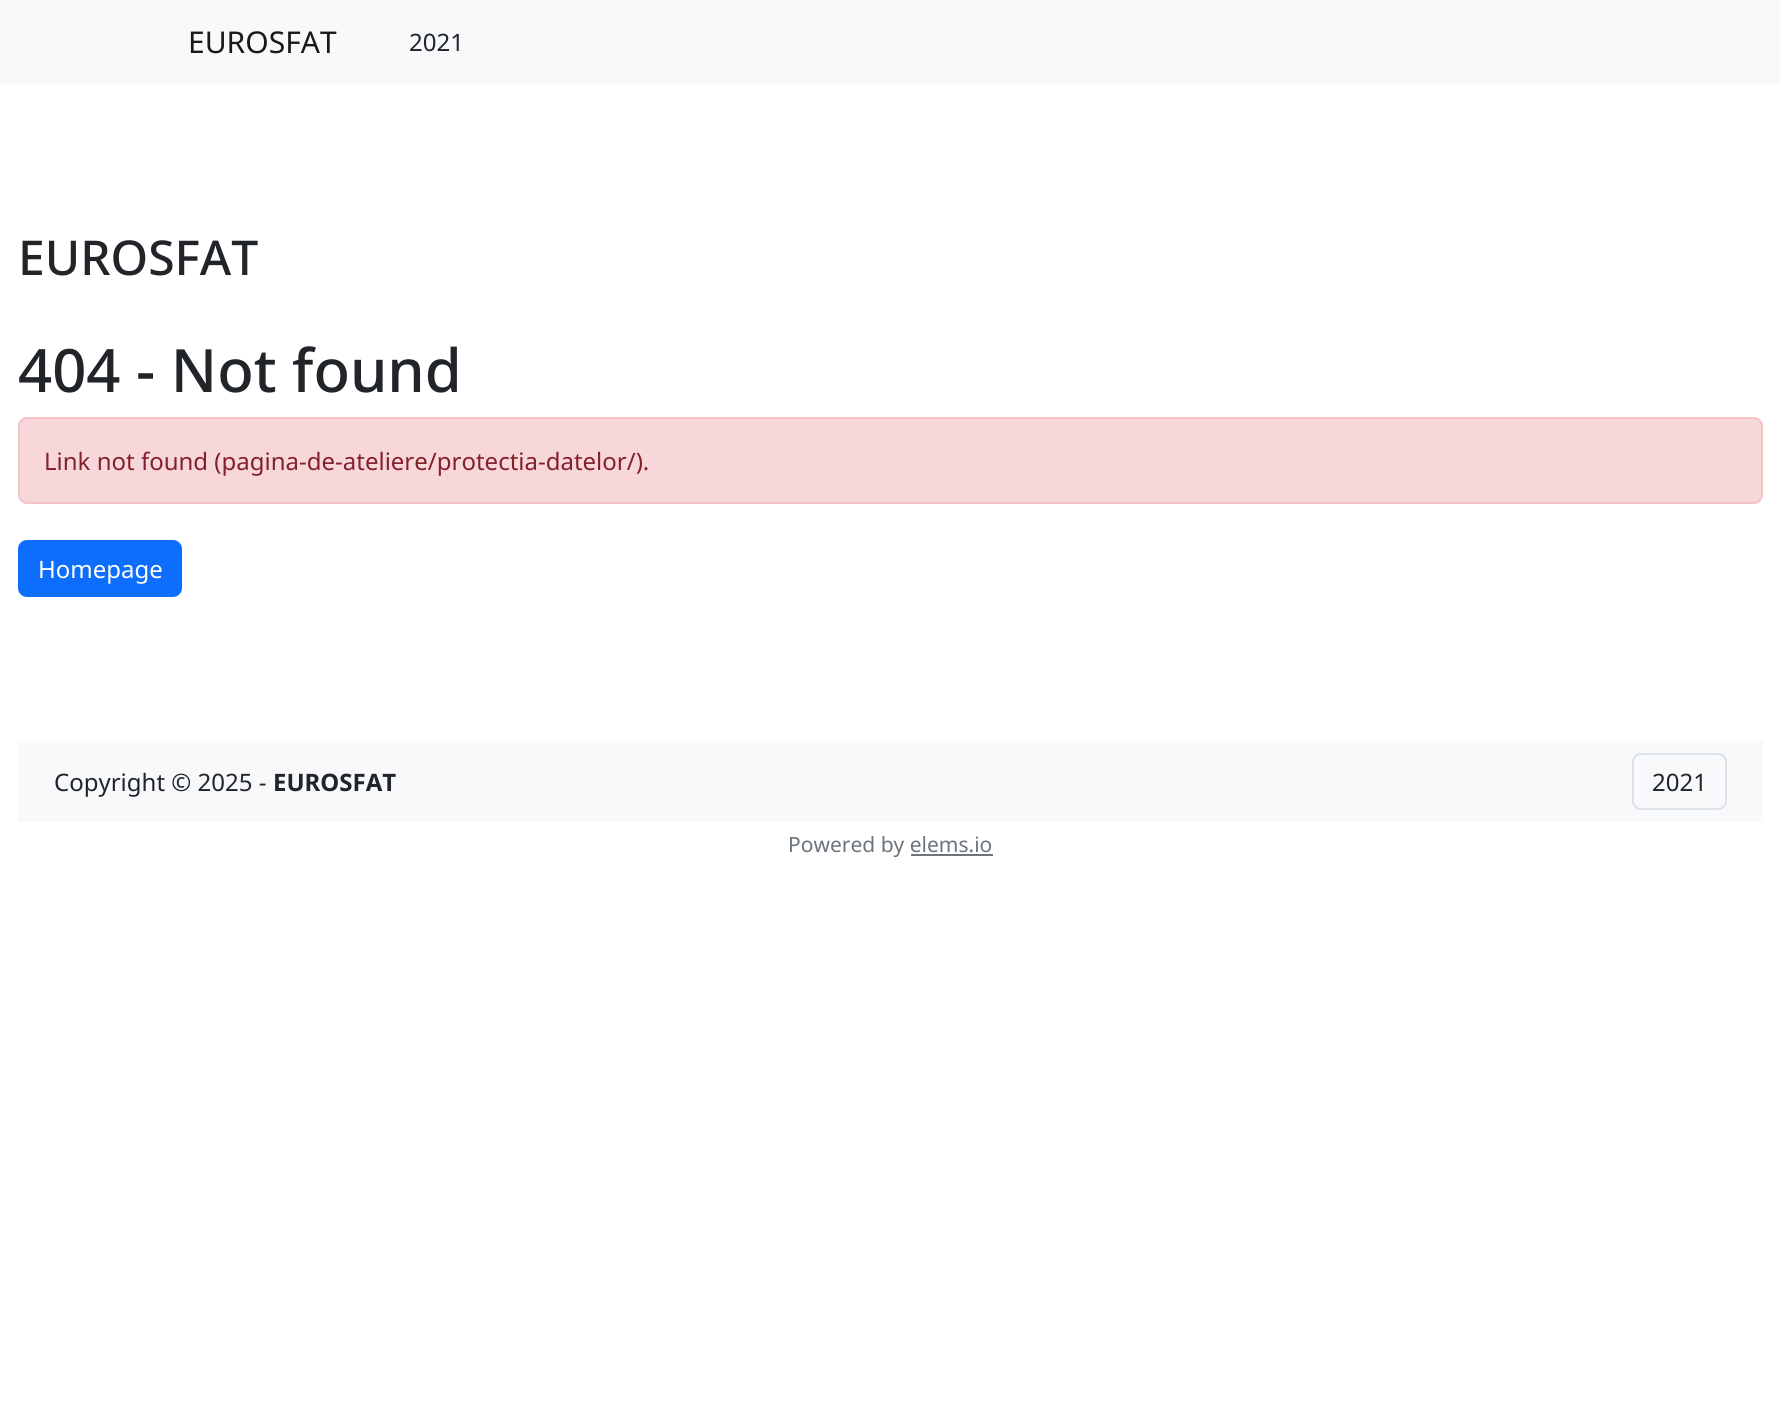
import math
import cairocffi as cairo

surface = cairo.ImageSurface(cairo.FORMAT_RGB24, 1780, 1413)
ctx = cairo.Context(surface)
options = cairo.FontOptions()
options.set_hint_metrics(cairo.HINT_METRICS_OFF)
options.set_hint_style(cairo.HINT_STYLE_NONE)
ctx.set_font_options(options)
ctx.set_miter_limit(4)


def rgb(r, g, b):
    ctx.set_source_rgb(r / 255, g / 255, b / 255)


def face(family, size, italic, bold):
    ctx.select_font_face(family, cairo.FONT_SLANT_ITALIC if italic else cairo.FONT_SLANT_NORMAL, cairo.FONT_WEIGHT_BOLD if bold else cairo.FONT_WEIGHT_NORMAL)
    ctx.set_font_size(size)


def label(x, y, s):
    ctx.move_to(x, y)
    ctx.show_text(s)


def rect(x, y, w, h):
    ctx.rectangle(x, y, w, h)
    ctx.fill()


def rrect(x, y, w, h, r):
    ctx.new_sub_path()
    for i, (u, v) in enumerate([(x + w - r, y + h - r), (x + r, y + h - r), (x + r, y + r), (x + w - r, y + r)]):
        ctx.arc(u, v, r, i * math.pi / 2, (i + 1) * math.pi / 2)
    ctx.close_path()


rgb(255, 255, 255)
ctx.paint()
rgb(248, 249, 250)
rect(0, 0, 1780, 84)
face('Noto Sans', 30, 0, 0)
rgb(25, 25, 25)
label(188, 53, 'EUROSFAT')
face('Noto Sans', 24, 0, 0)
rgb(33, 37, 41)
label(409, 51, '2021')
face('Noto Sans Medium', 48, 0, 0)
label(18, 275, 'EUROSFAT')
face('Noto Sans Medium', 59.75, 0, 0)
label(18, 392, '404 - Not found')
rgb(248, 215, 218)
rrect(19, 418, 1743, 85, 8)
ctx.fill_preserve()
rgb(245, 194, 199)
ctx.stroke()
face('Noto Sans', 24, 0, 0)
rgb(132, 32, 41)
label(44, 470, 'Link not found (pagina-de-ateliere/protectia-datelor/).')
rgb(13, 110, 253)
rrect(19, 541, 162, 55, 8)
ctx.fill_preserve()
ctx.stroke()
rgb(255, 255, 255)
label(38, 578, 'Homepage')
rgb(248, 249, 250)
rect(18, 741, 1745, 81)
rgb(33, 37, 41)
label(54, 791, 'Copyright © 2025 -')
face('Noto Sans', 24, 0, 1)
label(273, 791, 'EUROSFAT')
rrect(1633, 754, 93, 55, 8)
rgb(222, 226, 230)
ctx.stroke()
face('Noto Sans', 24, 0, 0)
rgb(33, 37, 41)
label(1652, 791, '2021')
face('Noto Sans', 21, 0, 0)
rgb(108, 117, 125)
label(788, 852, 'Powered by elems.io')
rect(911, 854, 82, 2)
surface.write_to_png('render.png')
